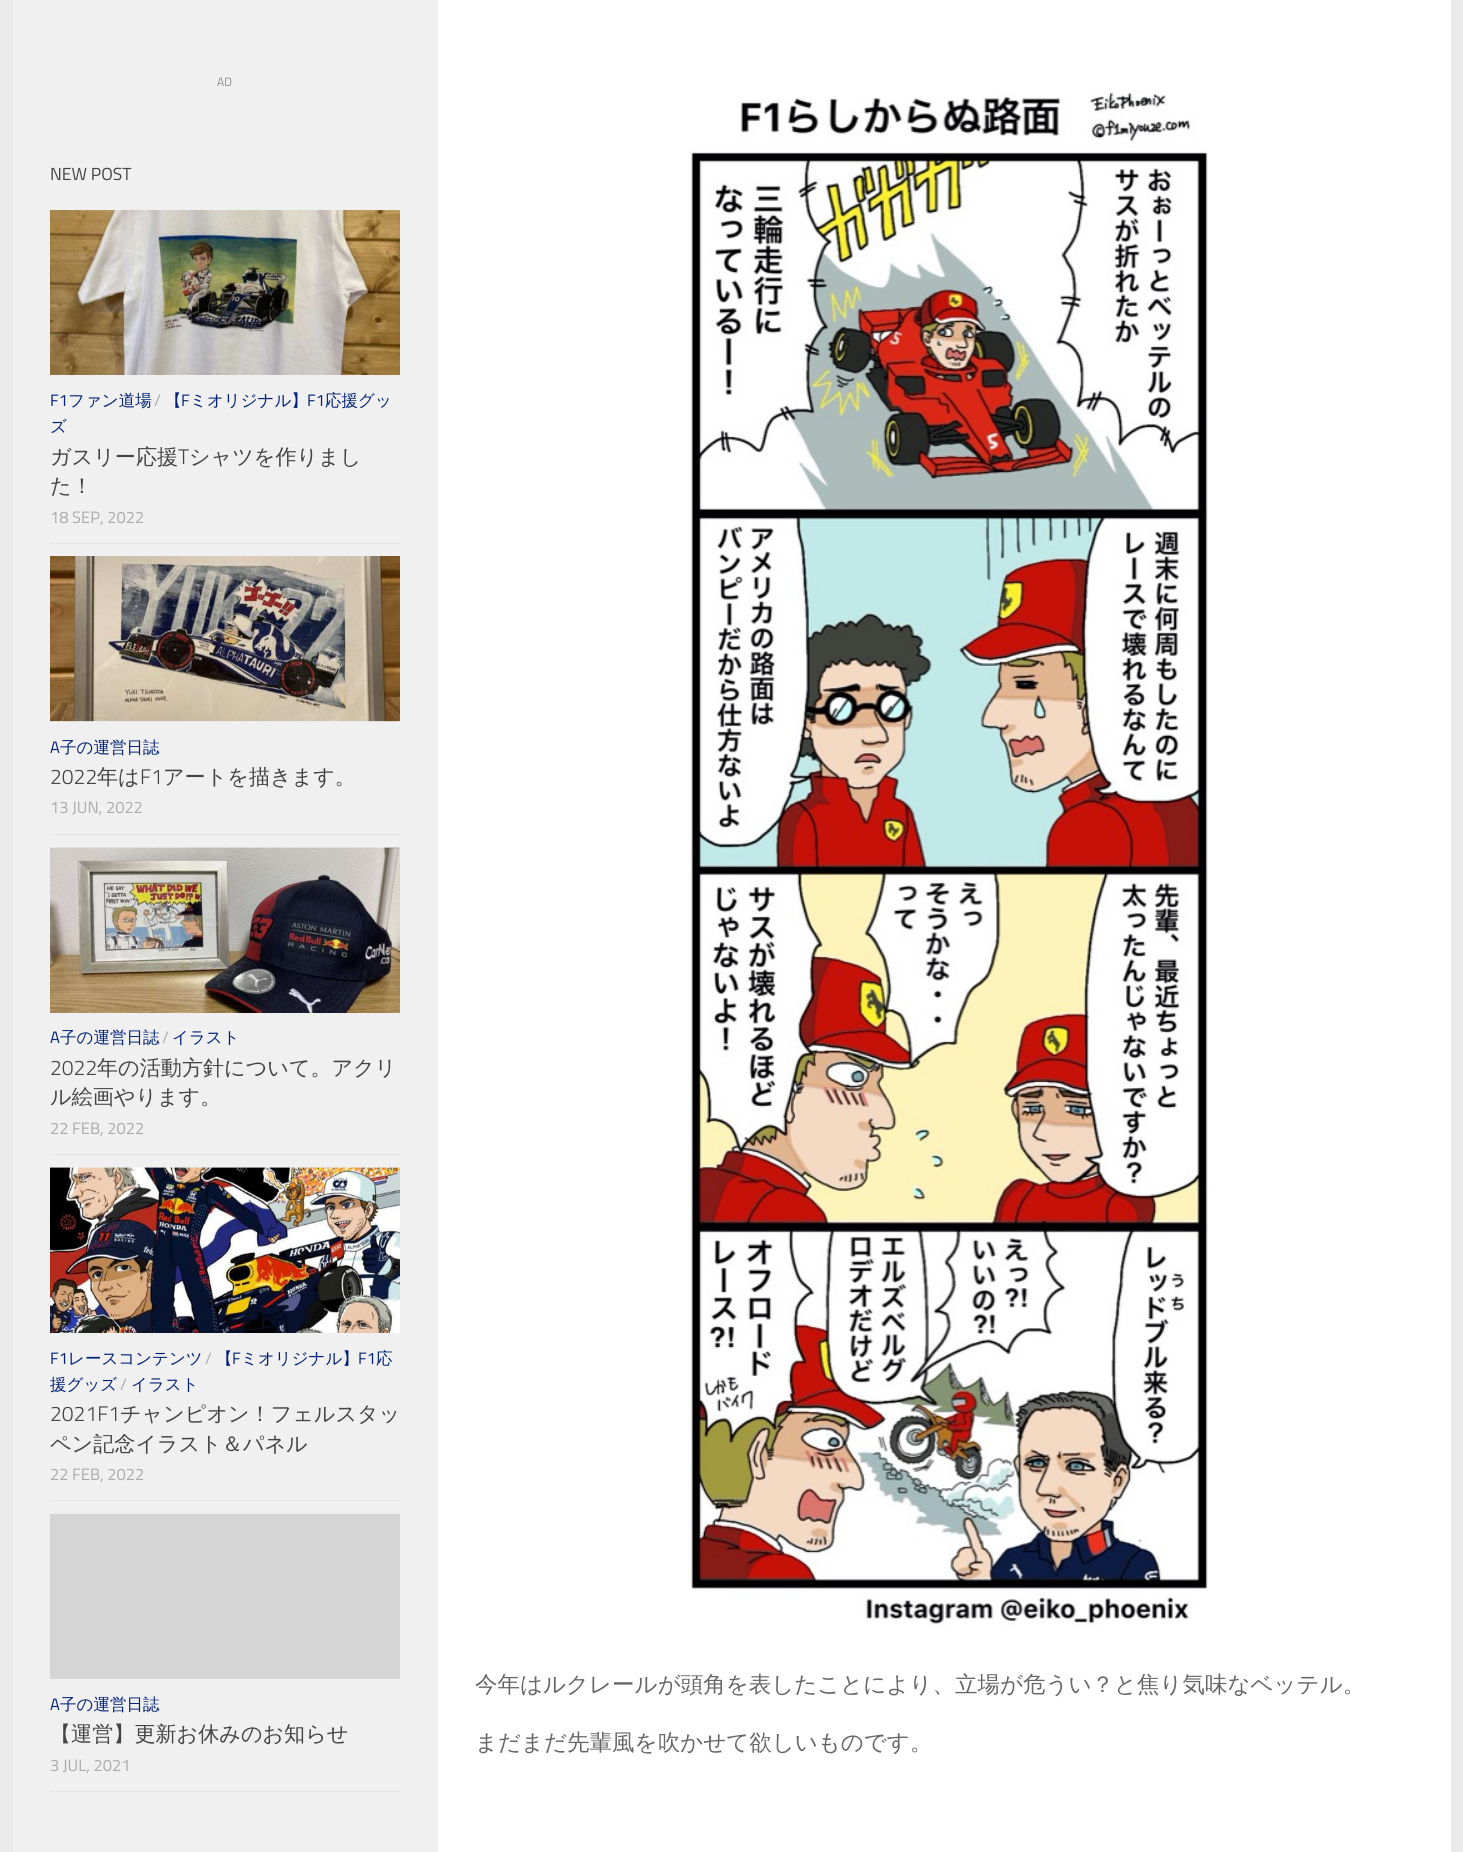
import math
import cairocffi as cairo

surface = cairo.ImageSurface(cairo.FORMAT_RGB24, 1463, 1852)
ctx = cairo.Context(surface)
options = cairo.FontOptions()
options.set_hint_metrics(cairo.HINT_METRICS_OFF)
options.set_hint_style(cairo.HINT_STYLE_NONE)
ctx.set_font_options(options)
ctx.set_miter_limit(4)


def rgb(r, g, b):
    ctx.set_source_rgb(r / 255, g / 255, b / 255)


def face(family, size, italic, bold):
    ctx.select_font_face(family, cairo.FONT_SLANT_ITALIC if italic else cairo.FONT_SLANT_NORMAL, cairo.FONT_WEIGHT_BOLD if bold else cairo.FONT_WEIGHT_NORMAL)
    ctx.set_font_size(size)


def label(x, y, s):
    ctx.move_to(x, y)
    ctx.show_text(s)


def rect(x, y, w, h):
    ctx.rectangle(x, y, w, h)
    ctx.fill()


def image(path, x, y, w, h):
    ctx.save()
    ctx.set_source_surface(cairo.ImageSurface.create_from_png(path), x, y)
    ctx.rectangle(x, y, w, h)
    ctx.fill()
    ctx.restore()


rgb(234, 234, 234)
ctx.paint()
rgb(255, 255, 255)
rect(438, 0, 1013, 1852)
rgb(240, 240, 240)
rect(13, 0, 425, 1852)
face('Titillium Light', 12, 0, 0)
rgb(119, 119, 119)
label(217, 86, 'AD')
face('Titillium', 17.5, 0, 0)
rgb(68, 68, 68)
label(50, 180, 'NEW POST')
rgb(228, 228, 228)
rect(50, 543, 350, 1)
image('image0.png', 50, 210, 350, 165)
face('Titillium', 16.5, 0, 0)
rgb(0, 33, 117)
label(50, 406, 'F1')
face('WenQuanYi Zen Hei Medium', 16.5, 0, 0)
label(68, 406, 'ファン道場')
face('Titillium', 16.5, 0, 0)
rgb(170, 170, 170)
label(154, 406, '/')
face('WenQuanYi Zen Hei Medium', 16.5, 0, 0)
rgb(0, 33, 117)
label(165, 406, '【')
face('Titillium', 16.5, 0, 0)
label(181, 406, 'F')
face('WenQuanYi Zen Hei Medium', 16.5, 0, 0)
label(190, 406, 'ミオリジナル】')
face('Titillium', 16.5, 0, 0)
label(307, 406, 'F1')
face('WenQuanYi Zen Hei Medium', 16.5, 0, 0)
label(325, 406, '応援グッ')
label(50, 432, 'ズ')
face('WenQuanYi Zen Hei Medium', 21.1, 0, 0)
rgb(68, 68, 68)
label(50, 464, 'ガスリー応援')
face('Titillium Light', 21.1, 0, 0)
label(178, 464, 'T')
face('WenQuanYi Zen Hei Medium', 21.1, 0, 0)
label(189, 464, 'シャツを作りまし')
label(50, 493, 'た！')
face('Titillium', 16.5, 0, 0)
rgb(170, 170, 170)
label(50, 523, '18 SEP, 2022')
rgb(228, 228, 228)
rect(50, 834, 350, 1)
image('image1.png', 50, 556, 350, 166)
rgb(0, 33, 117)
label(50, 753, 'A')
face('WenQuanYi Zen Hei Medium', 16.5, 0, 0)
label(60, 753, '子の運営日誌')
face('Titillium Light', 21.1, 0, 0)
rgb(68, 68, 68)
label(50, 784, '2022')
face('WenQuanYi Zen Hei Medium', 21.1, 0, 0)
label(97, 784, '年は')
face('Titillium Light', 21.1, 0, 0)
label(140, 784, 'F1')
face('WenQuanYi Zen Hei Medium', 21.1, 0, 0)
label(163, 784, 'アートを描きます。')
face('Titillium', 16.5, 0, 0)
rgb(170, 170, 170)
label(50, 813, '13 JUN, 2022')
rgb(228, 228, 228)
rect(50, 1154, 350, 1)
image('image2.png', 50, 847, 350, 166)
rgb(0, 33, 117)
label(50, 1043, 'A')
face('WenQuanYi Zen Hei Medium', 16.5, 0, 0)
label(60, 1043, '子の運営日誌')
face('Titillium', 16.5, 0, 0)
rgb(170, 170, 170)
label(162, 1043, '/')
face('WenQuanYi Zen Hei Medium', 16.5, 0, 0)
rgb(0, 33, 117)
label(172, 1043, 'イラスト')
face('Titillium Light', 21.1, 0, 0)
rgb(68, 68, 68)
label(50, 1075, '2022')
face('WenQuanYi Zen Hei Medium', 21.1, 0, 0)
label(97, 1075, '年の活動方針について。アクリ')
label(50, 1104, 'ル絵画やります。')
face('Titillium', 16.5, 0, 0)
rgb(170, 170, 170)
label(50, 1134, '22 FEB, 2022')
rgb(228, 228, 228)
rect(50, 1500, 350, 1)
image('image3.png', 50, 1167, 350, 166)
rgb(0, 33, 117)
label(50, 1364, 'F1')
face('WenQuanYi Zen Hei Medium', 16.5, 0, 0)
label(68, 1364, 'レースコンテンツ')
face('Titillium', 16.5, 0, 0)
rgb(170, 170, 170)
label(205, 1364, '/')
face('WenQuanYi Zen Hei Medium', 16.5, 0, 0)
rgb(0, 33, 117)
label(216, 1364, '【')
face('Titillium', 16.5, 0, 0)
label(232, 1364, 'F')
face('WenQuanYi Zen Hei Medium', 16.5, 0, 0)
label(241, 1364, 'ミオリジナル】')
face('Titillium', 16.5, 0, 0)
label(358, 1364, 'F1')
face('WenQuanYi Zen Hei Medium', 16.5, 0, 0)
label(376, 1364, '応')
label(50, 1390, '援グッズ')
face('Titillium', 16.5, 0, 0)
rgb(170, 170, 170)
label(120, 1390, '/')
face('WenQuanYi Zen Hei Medium', 16.5, 0, 0)
rgb(0, 33, 117)
label(131, 1390, 'イラスト')
face('Titillium Light', 21.1, 0, 0)
rgb(68, 68, 68)
label(50, 1421, '2021F1')
face('WenQuanYi Zen Hei Medium', 21.1, 0, 0)
label(120, 1421, 'チャンピオン！フェルスタッ')
label(50, 1451, 'ペン記念イラスト＆パネル')
face('Titillium', 16.5, 0, 0)
rgb(170, 170, 170)
label(50, 1480, '22 FEB, 2022')
rgb(228, 228, 228)
rect(50, 1791, 350, 1)
rgb(213, 213, 213)
rect(50, 1514, 350, 165)
rgb(0, 33, 117)
label(50, 1710, 'A')
face('WenQuanYi Zen Hei Medium', 16.5, 0, 0)
label(60, 1710, '子の運営日誌')
face('WenQuanYi Zen Hei Medium', 21.1, 0, 0)
rgb(68, 68, 68)
label(50, 1741, '【運営】更新お休みのお知らせ')
face('Titillium', 16.5, 0, 0)
rgb(170, 170, 170)
label(50, 1771, '3 JUL, 2021')
image('image4.png', 687, 90, 521, 1538)
face('WenQuanYi Zen Hei Medium', 22.5, 0, 0)
rgb(102, 102, 102)
label(475, 1692, '今年はルクレールが頭角を表したことにより、立場が危うい？と焦り気味なベッテル。')
label(475, 1750, 'まだまだ先輩風を吹かせて欲しいものです。')
surface.write_to_png('render.png')
